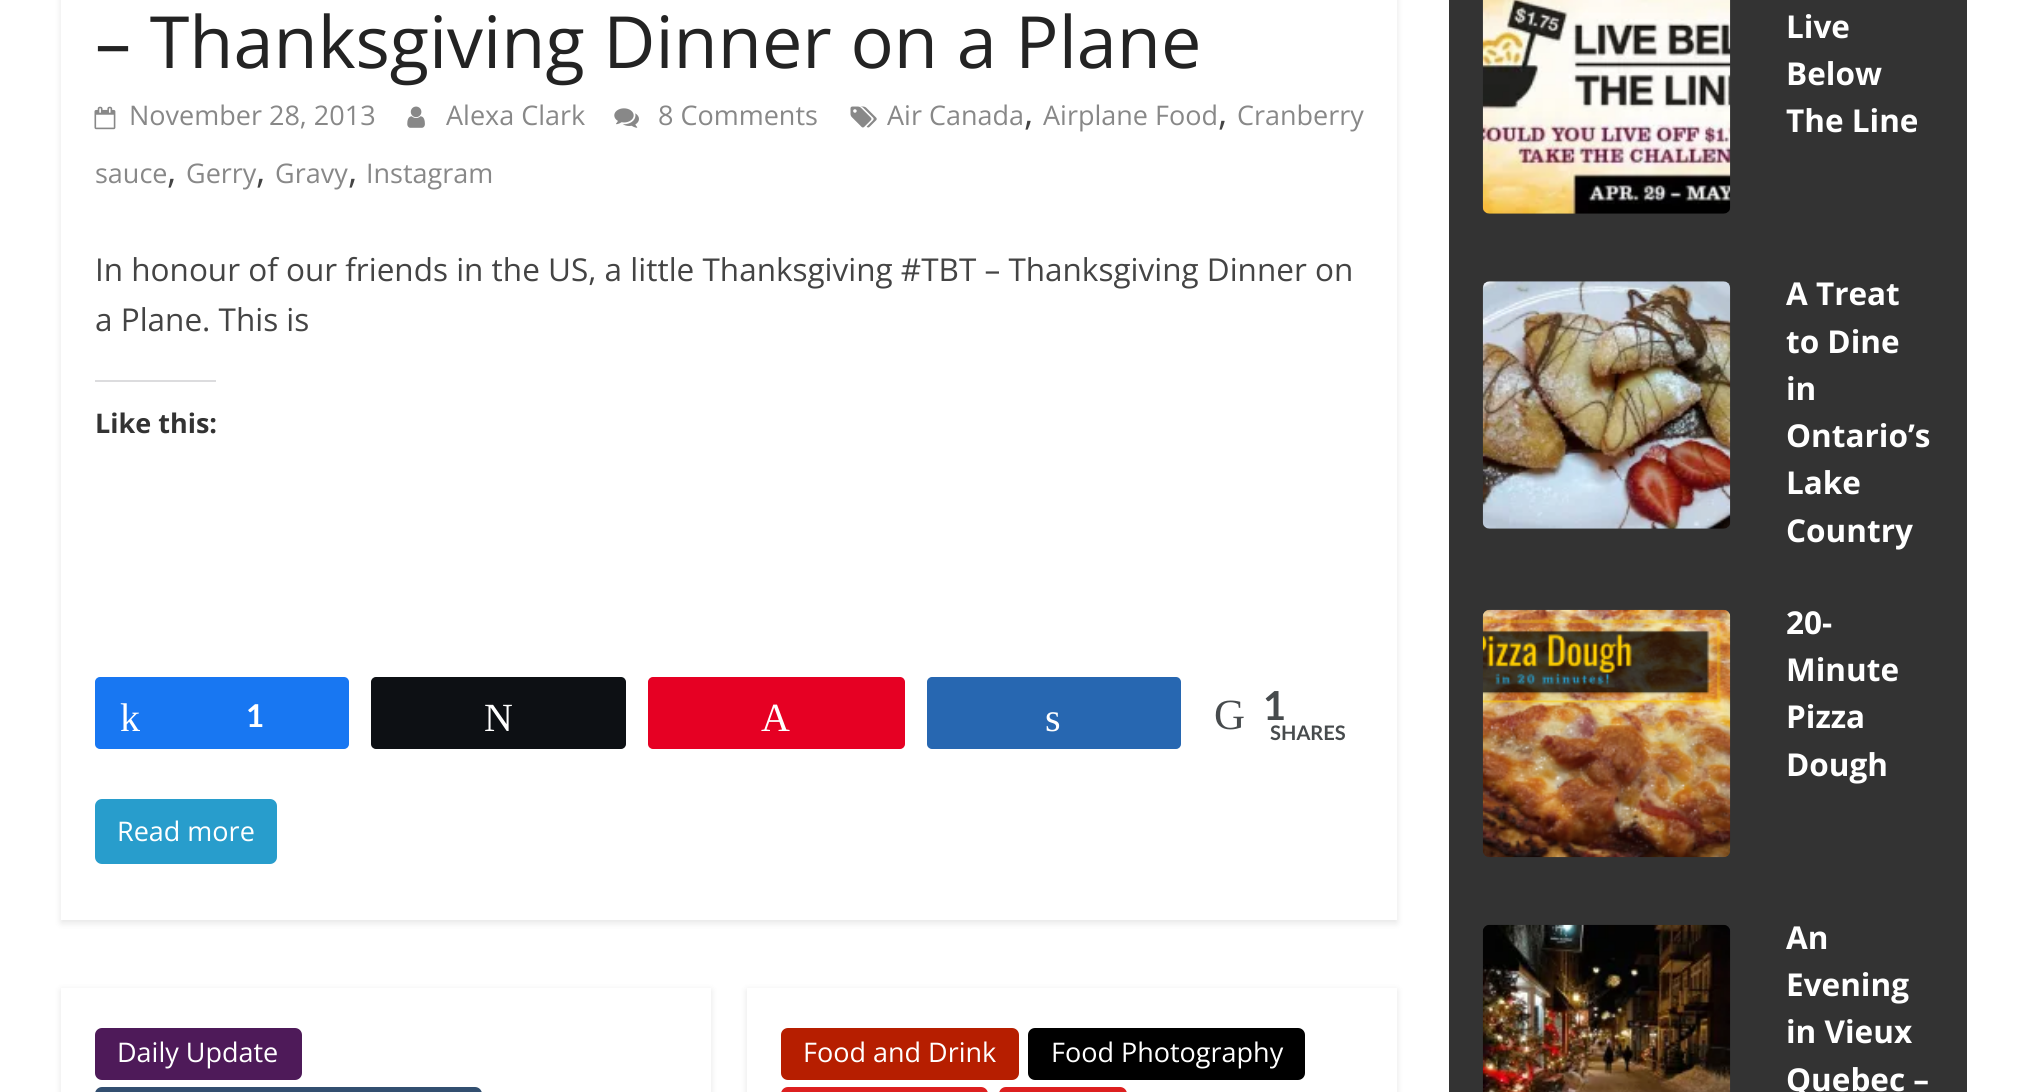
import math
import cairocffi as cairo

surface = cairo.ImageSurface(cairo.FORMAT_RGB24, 2027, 1092)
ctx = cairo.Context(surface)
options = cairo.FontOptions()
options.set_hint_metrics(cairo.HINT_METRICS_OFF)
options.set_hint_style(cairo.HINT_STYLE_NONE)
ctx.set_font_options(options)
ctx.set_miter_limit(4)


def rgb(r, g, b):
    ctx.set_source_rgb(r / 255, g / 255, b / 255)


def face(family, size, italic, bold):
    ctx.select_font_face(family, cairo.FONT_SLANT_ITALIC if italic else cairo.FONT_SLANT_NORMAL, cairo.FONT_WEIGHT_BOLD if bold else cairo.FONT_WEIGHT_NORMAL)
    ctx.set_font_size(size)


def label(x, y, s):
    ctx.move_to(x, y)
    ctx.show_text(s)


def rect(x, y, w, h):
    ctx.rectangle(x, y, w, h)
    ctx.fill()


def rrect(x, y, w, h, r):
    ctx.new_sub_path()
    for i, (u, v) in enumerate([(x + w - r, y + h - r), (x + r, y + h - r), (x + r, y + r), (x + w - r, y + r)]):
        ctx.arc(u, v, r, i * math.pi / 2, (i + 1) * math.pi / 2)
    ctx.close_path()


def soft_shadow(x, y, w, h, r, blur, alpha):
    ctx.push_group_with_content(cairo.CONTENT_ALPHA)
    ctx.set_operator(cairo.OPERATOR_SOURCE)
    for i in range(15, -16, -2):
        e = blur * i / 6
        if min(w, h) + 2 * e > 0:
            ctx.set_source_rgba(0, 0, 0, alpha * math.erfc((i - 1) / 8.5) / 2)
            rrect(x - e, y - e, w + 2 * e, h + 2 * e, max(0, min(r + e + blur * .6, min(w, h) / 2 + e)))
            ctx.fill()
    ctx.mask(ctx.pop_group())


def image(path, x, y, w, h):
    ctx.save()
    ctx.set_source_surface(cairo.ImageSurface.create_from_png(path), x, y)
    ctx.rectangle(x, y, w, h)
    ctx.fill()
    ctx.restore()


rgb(255, 255, 255)
ctx.paint()
ctx.save()
ctx.set_fill_rule(cairo.FILL_RULE_EVEN_ODD)
ctx.new_path()
ctx.move_to(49, 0)
ctx.line_to(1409, 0)
ctx.line_to(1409, 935)
ctx.line_to(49, 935)
ctx.close_path()
ctx.move_to(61, -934)
ctx.line_to(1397, -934)
ctx.line_to(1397, 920)
ctx.line_to(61, 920)
ctx.close_path()
ctx.clip()
rgb(0, 0, 0)
soft_shadow(61, -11, 1336, 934, 0, 3.5, 0.1)
ctx.restore()
face('Open Sans', 72, 0, 0)
rgb(35, 35, 35)
label(95, 68, '– Thanksgiving Dinner on a Plane')
image('image0.png', 850, 106, 27, 22)
face('Open Sans', 27, 0, 0)
rgb(136, 136, 136)
label(887, 125, 'Air Canada')
face('Open Sans', 36, 0, 0)
rgb(68, 68, 68)
label(1024, 125, ',')
face('Open Sans', 27, 0, 0)
rgb(136, 136, 136)
label(1043, 125, 'Airplane Food')
face('Open Sans', 36, 0, 0)
rgb(68, 68, 68)
label(1218, 125, ',')
face('Open Sans', 27, 0, 0)
rgb(136, 136, 136)
label(1237, 125, 'Cranberry')
label(95, 183, 'sauce')
face('Open Sans', 36, 0, 0)
rgb(68, 68, 68)
label(167, 183, ',')
face('Open Sans', 27, 0, 0)
rgb(136, 136, 136)
label(186, 183, 'Gerry')
face('Open Sans', 36, 0, 0)
rgb(68, 68, 68)
label(256, 183, ',')
face('Open Sans', 27, 0, 0)
rgb(136, 136, 136)
label(275, 183, 'Gravy')
face('Open Sans', 36, 0, 0)
rgb(68, 68, 68)
label(348, 183, ',')
face('Open Sans', 27, 0, 0)
rgb(136, 136, 136)
label(366, 183, 'Instagram')
image('image1.png', 94, 106, 22, 24)
label(129, 125, 'November 28, 2013')
image('image2.png', 407, 106, 18, 22)
label(446, 125, 'Alexa Clark')
image('image3.png', 614, 108, 25, 20)
label(658, 125, '8 Comments')
face('Open Sans', 31.5, 0, 0)
rgb(68, 68, 68)
label(95, 281, 'In honour of our friends in the US, a little Thanksgiving #TBT – Thanksgiving Dinner on')
label(95, 331, 'a Plane. This is')
rgb(220, 220, 222)
rect(95, 380, 121, 2)
face('Open Sans', 27, 0, 1)
rgb(51, 51, 51)
label(95, 433, 'Like this:')
rgb(24, 119, 242)
rrect(96, 678, 252, 70, 4)
ctx.fill_preserve()
ctx.stroke()
face('Liberation Serif', 40, 0, 0)
rgb(255, 255, 255)
label(120, 731, 'k')
face('Lato', 31.5, 0, 1)
label(246, 727, '1')
rgb(13, 16, 20)
rrect(372, 678, 253, 70, 4)
ctx.fill_preserve()
ctx.stroke()
face('Liberation Serif', 40, 0, 0)
rgb(255, 255, 255)
label(484, 731, 'N')
rgb(230, 0, 35)
rrect(649, 678, 255, 70, 4)
ctx.fill_preserve()
ctx.stroke()
rgb(255, 255, 255)
label(761, 731, 'A')
rgb(39, 103, 177)
rrect(928, 678, 252, 70, 4)
ctx.fill_preserve()
ctx.stroke()
rgb(255, 255, 255)
label(1045, 731, 's')
face('Liberation Serif', 43, 0, 0)
rgb(71, 75, 77)
label(1214, 729, 'G')
face('Lato', 40, 0, 1)
label(1263, 720, '1')
face('Lato', 20, 0, 1)
label(1270, 740, 'SHARES')
rgb(40, 157, 204)
rrect(95, 799, 182, 65, 7)
ctx.fill()
face('Open Sans', 27, 0, 0)
rgb(255, 255, 255)
label(117, 841, 'Read more')
ctx.save()
ctx.set_fill_rule(cairo.FILL_RULE_EVEN_ODD)
ctx.new_path()
ctx.move_to(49, 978)
ctx.line_to(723, 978)
ctx.line_to(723, 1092)
ctx.line_to(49, 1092)
ctx.close_path()
ctx.move_to(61, 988)
ctx.line_to(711, 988)
ctx.line_to(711, 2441)
ctx.line_to(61, 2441)
ctx.close_path()
ctx.clip()
rgb(0, 0, 0)
soft_shadow(61, 990, 650, 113, 0, 3.5, 0.1)
ctx.restore()
rgb(78, 26, 89)
rrect(95, 1028, 207, 52, 7)
ctx.fill()
rgb(255, 255, 255)
label(117, 1062, 'Daily Update')
rgb(50, 79, 112)
rrect(95, 1087, 387, 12, 7)
ctx.fill()
ctx.save()
ctx.set_fill_rule(cairo.FILL_RULE_EVEN_ODD)
ctx.new_path()
ctx.move_to(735, 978)
ctx.line_to(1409, 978)
ctx.line_to(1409, 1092)
ctx.line_to(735, 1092)
ctx.close_path()
ctx.move_to(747, 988)
ctx.line_to(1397, 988)
ctx.line_to(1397, 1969)
ctx.line_to(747, 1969)
ctx.close_path()
ctx.clip()
rgb(0, 0, 0)
soft_shadow(747, 990, 650, 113, 0, 3.5, 0.1)
ctx.restore()
rgb(182, 30, 0)
rrect(781, 1028, 238, 52, 7)
ctx.fill()
rgb(255, 255, 255)
label(803, 1062, 'Food and Drink')
rgb(0, 0, 0)
rrect(1028, 1028, 277, 52, 7)
ctx.fill()
rgb(255, 255, 255)
label(1051, 1062, 'Food Photography')
rgb(221, 31, 31)
rrect(781, 1087, 207, 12, 7)
ctx.fill()
rrect(999, 1087, 128, 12, 7)
ctx.fill()
rgb(51, 51, 51)
rect(1449, 0, 518, 1092)
image('image4.png', 1482, 0, 249, 214)
face('Open Sans', 31.5, 0, 1)
rgb(255, 255, 255)
label(1786, 38, 'Live')
label(1786, 85, 'Below')
label(1786, 132, 'The Line')
image('image5.png', 1482, 281, 249, 248)
label(1786, 305, 'A Treat')
label(1786, 353, 'to Dine')
label(1786, 400, 'in')
label(1786, 447, 'Ontario’s')
label(1786, 494, 'Lake')
label(1786, 542, 'Country')
image('image6.png', 1482, 609, 249, 249)
label(1786, 634, '20-')
label(1786, 681, 'Minute')
label(1786, 728, 'Pizza')
label(1786, 776, 'Dough')
image('image7.png', 1482, 924, 249, 168)
label(1786, 949, 'An')
label(1786, 996, 'Evening')
label(1786, 1043, 'in Vieux')
label(1786, 1091, 'Quebec –')
surface.write_to_png('render.png')
